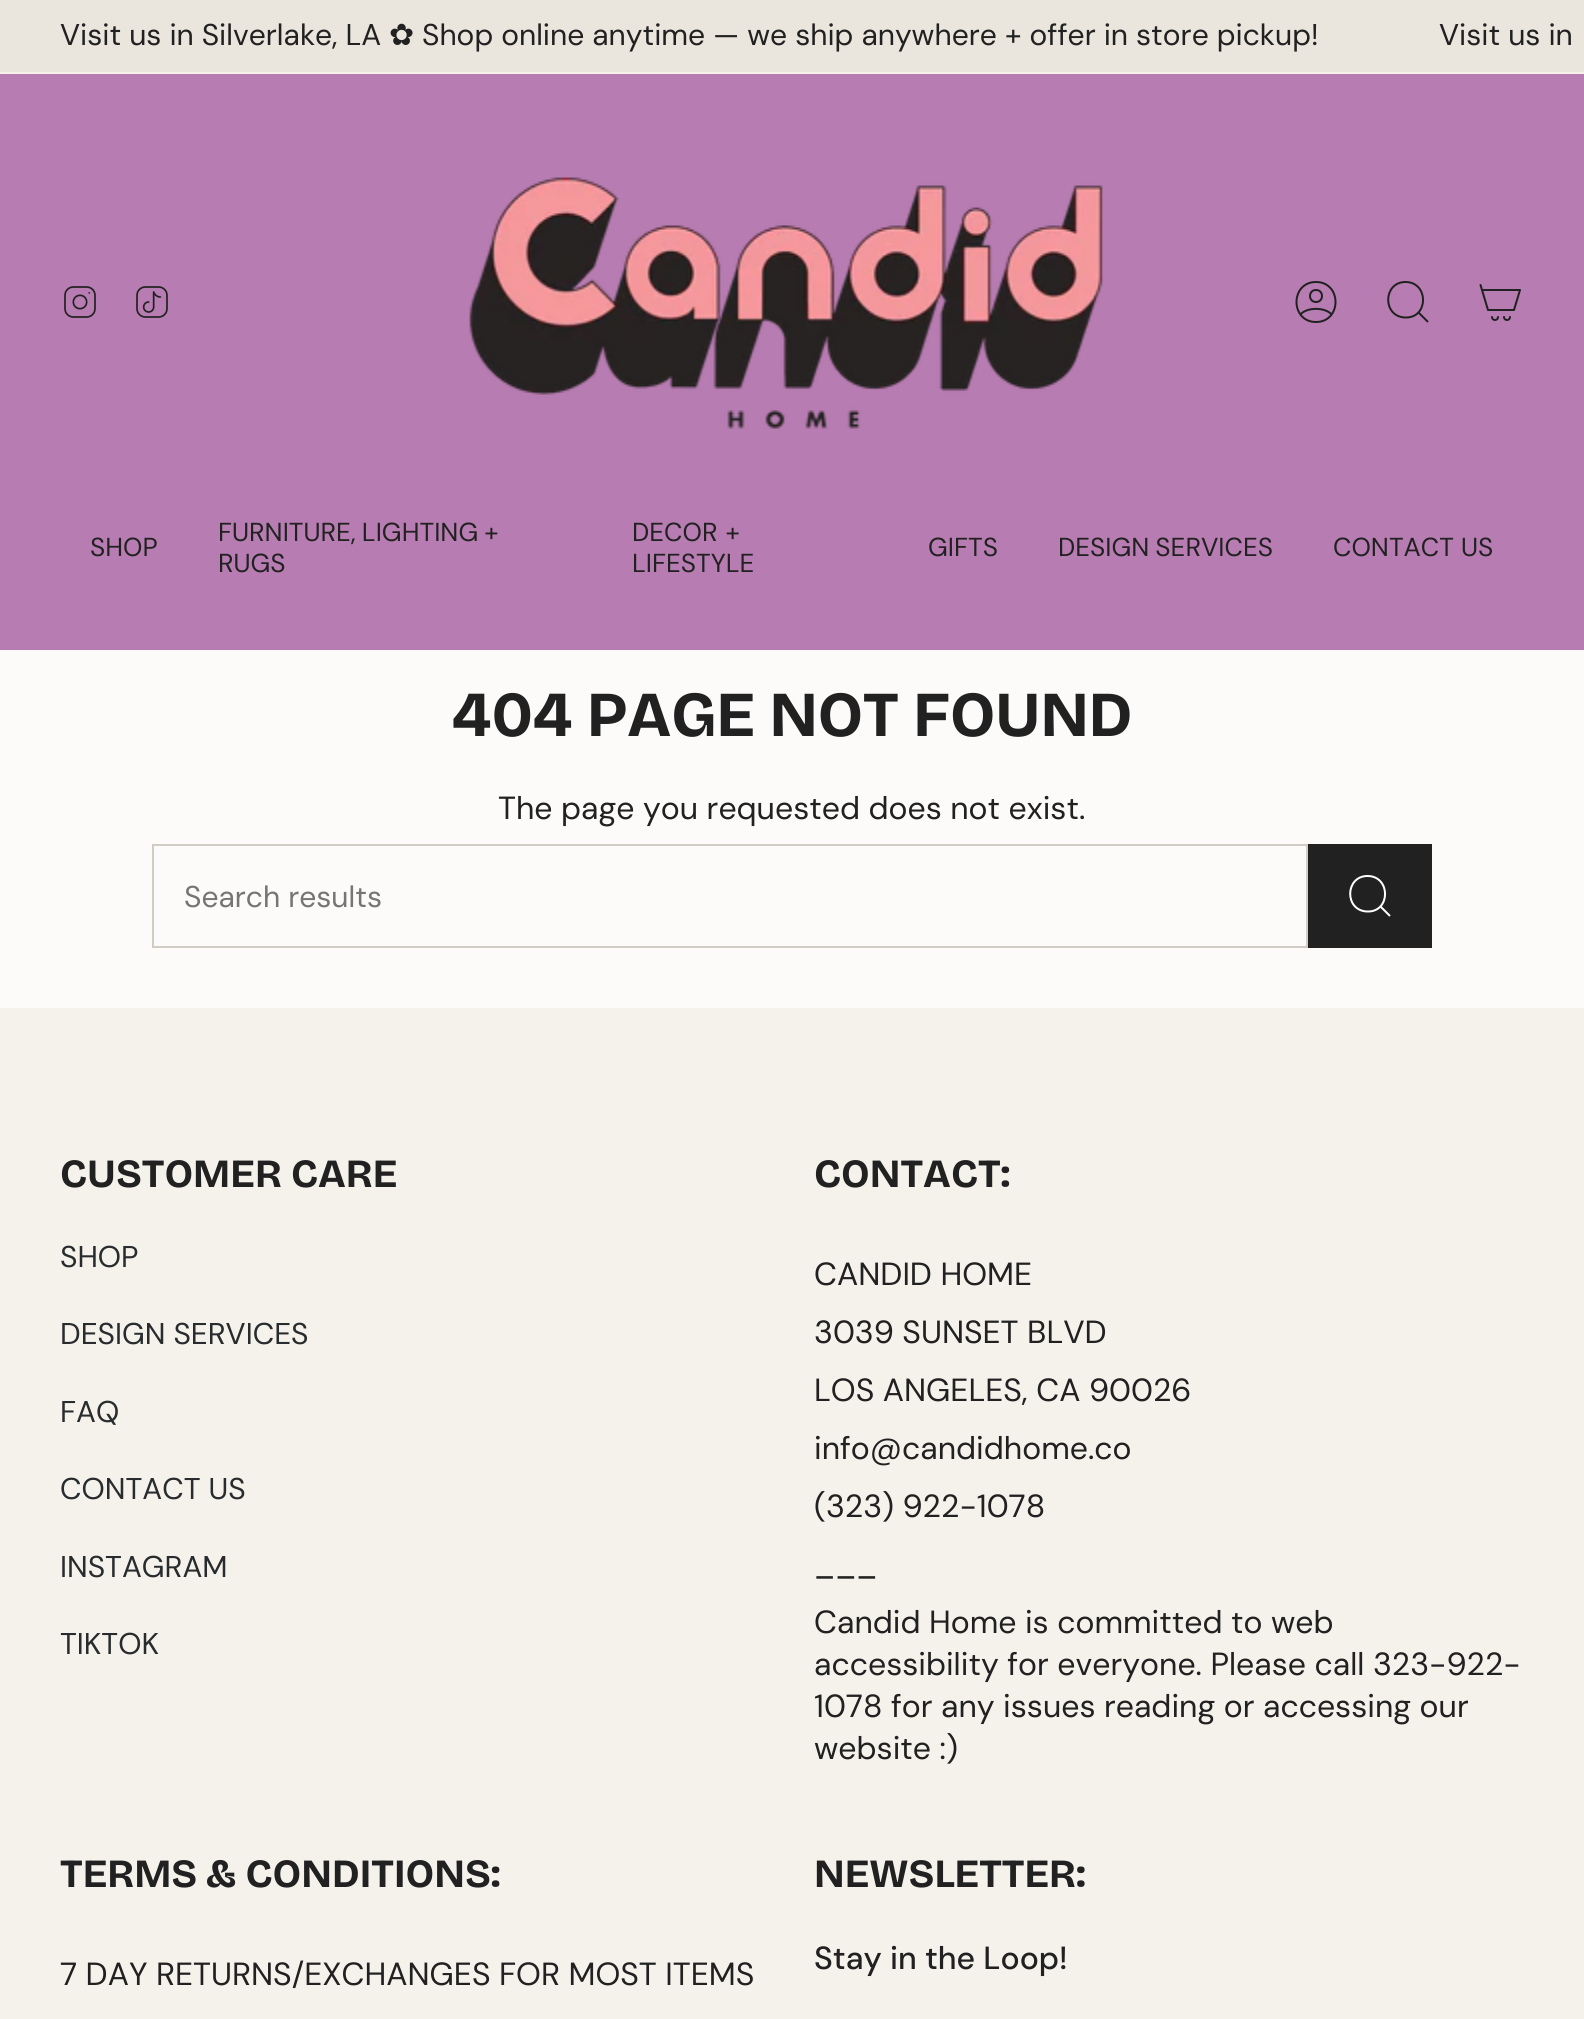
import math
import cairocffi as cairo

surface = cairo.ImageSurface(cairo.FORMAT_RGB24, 1584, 2019)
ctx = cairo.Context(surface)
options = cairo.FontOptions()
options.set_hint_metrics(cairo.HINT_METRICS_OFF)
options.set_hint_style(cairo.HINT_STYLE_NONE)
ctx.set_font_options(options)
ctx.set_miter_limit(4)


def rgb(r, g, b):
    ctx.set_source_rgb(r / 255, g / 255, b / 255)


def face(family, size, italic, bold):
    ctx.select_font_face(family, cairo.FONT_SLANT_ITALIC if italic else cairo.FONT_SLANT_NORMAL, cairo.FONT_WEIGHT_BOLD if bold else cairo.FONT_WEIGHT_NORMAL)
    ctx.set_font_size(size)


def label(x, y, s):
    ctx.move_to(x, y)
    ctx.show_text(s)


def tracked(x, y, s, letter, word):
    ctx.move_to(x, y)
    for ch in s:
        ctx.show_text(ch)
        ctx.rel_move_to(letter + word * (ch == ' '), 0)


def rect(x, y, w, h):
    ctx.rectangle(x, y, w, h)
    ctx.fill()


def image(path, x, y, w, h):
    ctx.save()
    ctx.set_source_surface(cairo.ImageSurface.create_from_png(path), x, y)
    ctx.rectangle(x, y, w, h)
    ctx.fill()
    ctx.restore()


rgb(252, 251, 249)
ctx.paint()
rgb(234, 230, 221)
rect(0, 0, 1584, 72)
rgb(245, 242, 236)
rect(0, 72, 1584, 2)
face('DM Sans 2', 30, 0, 0)
rgb(33, 33, 33)
label(60, 45, 'Visit us in Silverlake, LA')
face('DejaVu Sans', 30, 0, 0)
label(389, 45, '✿')
face('DM Sans 2', 30, 0, 0)
label(422, 45, 'Shop online anytime — we ship anywhere')
label(1005, 45, '+ offer in store pickup!')
label(1439, 45, 'Visit us in')
rgb(183, 124, 177)
rect(0, 74, 1584, 576)
image('image0.png', 64, 286, 32, 32)
image('image1.png', 136, 286, 32, 32)
image('image2.png', 469, 177, 634, 252)
ctx.new_path()
ctx.move_to(1316, 282)
ctx.curve_to(1290, 282, 1290, 322, 1316, 322)
ctx.curve_to(1342, 322, 1342, 282, 1316, 282)
ctx.close_path()
ctx.move_to(1300.5, 314.5)
ctx.curve_to(1306.5, 307, 1325.5, 307, 1331.5, 314.5)
ctx.move_to(1316, 302)
ctx.curve_to(1324, 302, 1324, 290, 1316, 290)
ctx.curve_to(1308, 290, 1308, 302, 1316, 302)
ctx.close_path()
rgb(33, 33, 33)
ctx.set_line_cap(cairo.LINE_CAP_ROUND)
ctx.set_line_join(cairo.LINE_JOIN_ROUND)
ctx.stroke()
ctx.new_path()
ctx.move_to(1405.5, 282)
ctx.curve_to(1429, 282, 1429, 318.5, 1405, 317.5)
ctx.curve_to(1382, 316.5, 1383, 282, 1405.5, 282)
ctx.close_path()
ctx.move_to(1418, 312)
ctx.line_to(1428, 322)
ctx.set_line_cap(cairo.LINE_CAP_BUTT)
ctx.set_line_join(cairo.LINE_JOIN_MITER)
ctx.stroke()
ctx.new_path()
ctx.move_to(1482, 290)
ctx.line_to(1520, 290)
ctx.line_to(1514, 310)
ctx.line_to(1488, 310)
ctx.close_path()
ctx.move_to(1482, 290)
ctx.line_to(1480.5, 285)
ctx.move_to(1498, 317)
ctx.curve_to(1498, 321, 1492, 321, 1492, 317)
ctx.move_to(1510, 317)
ctx.curve_to(1510, 321, 1504, 321, 1504, 317)
ctx.set_line_cap(cairo.LINE_CAP_ROUND)
ctx.set_line_join(cairo.LINE_JOIN_ROUND)
ctx.stroke()
face('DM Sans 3', 26, 0, 0)
label(90, 556, 'SHOP')
tracked(218, 541, 'FURNITURE, LIGHTING +', 0, -1)
label(218, 572, 'RUGS')
tracked(632, 541, 'DECOR +', 0, 1)
label(632, 572, 'LIFESTYLE')
label(928, 556, 'GIFTS')
tracked(1058, 556, 'DESIGN SERVICES', 0, -1)
label(1333, 556, 'CONTACT US')
face('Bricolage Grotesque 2', 64, 0, 1)
label(452, 736, '404 PAGE NOT FOUND')
face('DM Sans', 32, 0, 0)
label(498, 819, 'The page you requested does not exist.')
ctx.rectangle(153, 845, 1154, 102)
rgb(209, 205, 196)
ctx.set_line_cap(cairo.LINE_CAP_BUTT)
ctx.set_line_join(cairo.LINE_JOIN_MITER)
ctx.stroke()
face('DM Sans 2', 30, 0, 0)
rgb(117, 117, 117)
label(184, 907, 'Search results')
rgb(33, 33, 33)
rect(1308, 844, 124, 104)
ctx.new_path()
ctx.move_to(1367.5, 876)
ctx.curve_to(1391, 876, 1391, 912.5, 1367, 911.5)
ctx.curve_to(1344, 910.5, 1345, 876, 1367.5, 876)
ctx.close_path()
ctx.move_to(1380, 906)
ctx.line_to(1390, 916)
rgb(255, 255, 255)
ctx.stroke()
rgb(245, 242, 236)
rect(0, 1008, 1584, 1011)
face('Bricolage Grotesque', 40, 0, 1)
rgb(33, 33, 33)
label(60, 1187, 'CUSTOMER CARE')
face('DM Sans 2', 30, 0, 0)
rgb(40, 44, 46)
label(60, 1267, 'SHOP')
label(60, 1344, 'DESIGN SERVICES')
label(60, 1422, 'FAQ')
label(60, 1499, 'CONTACT US')
label(60, 1577, 'INSTAGRAM')
label(60, 1654, 'TIKTOK')
face('Bricolage Grotesque', 40, 0, 1)
rgb(33, 33, 33)
label(814, 1187, 'CONTACT:')
face('DM Sans', 32, 0, 0)
label(814, 1285, 'CANDID HOME')
label(814, 1343, '3039 SUNSET BLVD')
label(814, 1401, 'LOS ANGELES, CA 90026')
label(814, 1459, 'info@candidhome.co')
label(814, 1517, '(323) 922-1078')
label(814, 1575, '___')
label(814, 1633, 'Candid Home is committed to web')
label(814, 1675, 'accessibility for everyone. Please call 323-922-')
label(814, 1717, '1078 for any issues reading or accessing our')
label(814, 1759, 'website :)')
face('Bricolage Grotesque', 40, 0, 1)
label(60, 1887, 'TERMS & CONDITIONS:')
face('DM Sans', 32, 0, 0)
label(60, 1985, '7 DAY RETURNS/EXCHANGES FOR MOST ITEMS')
face('Bricolage Grotesque', 40, 0, 1)
label(814, 1887, 'NEWSLETTER:')
face('DM Sans Medium', 32, 0, 0)
label(814, 1969, 'Stay in the Loop!')
surface.write_to_png('render.png')
